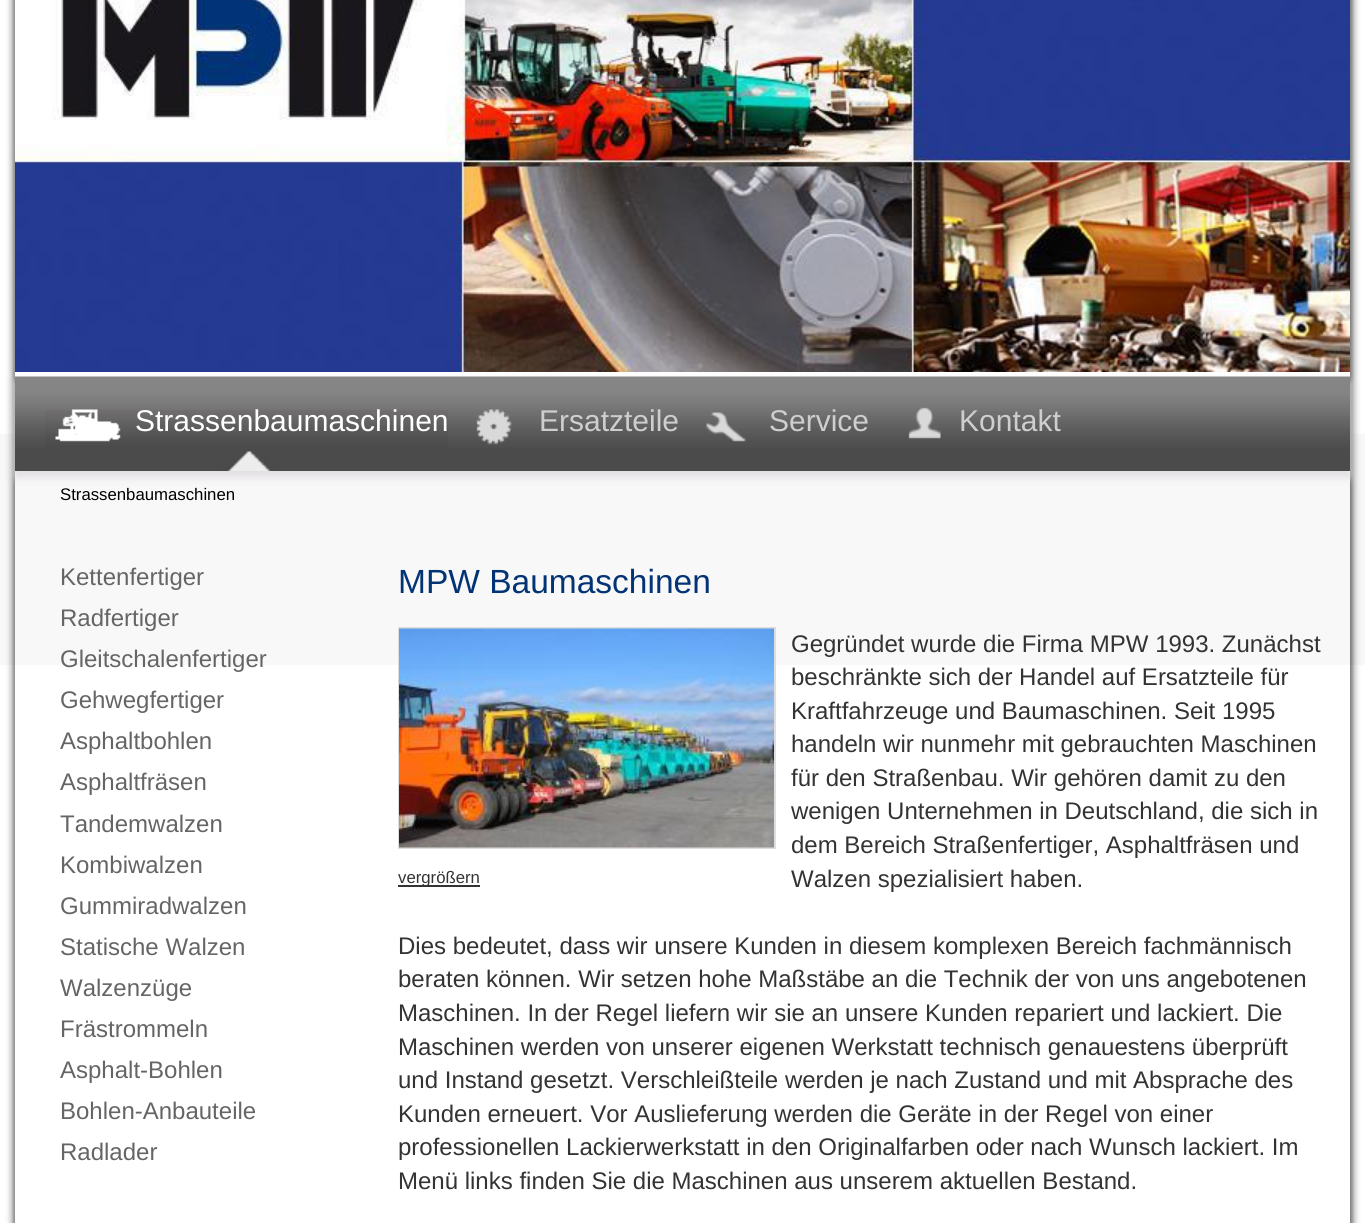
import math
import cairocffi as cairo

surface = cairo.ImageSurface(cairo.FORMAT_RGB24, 1365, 1223)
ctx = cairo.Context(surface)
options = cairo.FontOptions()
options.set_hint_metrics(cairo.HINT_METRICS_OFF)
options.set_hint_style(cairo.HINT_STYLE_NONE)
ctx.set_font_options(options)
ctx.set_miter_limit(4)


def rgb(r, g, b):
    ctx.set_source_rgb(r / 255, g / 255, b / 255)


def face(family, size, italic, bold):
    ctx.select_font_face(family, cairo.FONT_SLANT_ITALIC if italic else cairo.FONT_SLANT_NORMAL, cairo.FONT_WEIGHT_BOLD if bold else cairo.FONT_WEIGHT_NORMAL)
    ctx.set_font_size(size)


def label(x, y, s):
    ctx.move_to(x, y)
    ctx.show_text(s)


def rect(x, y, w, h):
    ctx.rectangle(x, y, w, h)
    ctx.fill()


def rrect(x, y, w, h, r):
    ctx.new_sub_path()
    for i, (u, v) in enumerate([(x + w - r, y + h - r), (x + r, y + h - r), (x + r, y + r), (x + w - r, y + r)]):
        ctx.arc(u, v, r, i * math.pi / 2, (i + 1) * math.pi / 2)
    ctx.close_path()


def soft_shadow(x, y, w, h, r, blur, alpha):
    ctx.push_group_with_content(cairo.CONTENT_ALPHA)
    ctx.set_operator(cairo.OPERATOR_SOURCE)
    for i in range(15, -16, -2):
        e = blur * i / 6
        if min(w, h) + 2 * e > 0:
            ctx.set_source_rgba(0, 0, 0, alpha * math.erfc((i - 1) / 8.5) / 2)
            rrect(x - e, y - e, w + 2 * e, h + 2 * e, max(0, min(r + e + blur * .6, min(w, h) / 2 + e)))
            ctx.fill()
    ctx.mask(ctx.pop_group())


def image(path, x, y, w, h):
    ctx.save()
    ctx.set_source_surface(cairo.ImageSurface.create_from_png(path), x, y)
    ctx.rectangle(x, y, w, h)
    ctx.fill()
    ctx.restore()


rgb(255, 255, 255)
ctx.paint()
rgb(248, 248, 248)
rect(0, 434, 1365, 231)
ctx.save()
ctx.set_fill_rule(cairo.FILL_RULE_EVEN_ODD)
ctx.new_path()
ctx.move_to(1, 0)
ctx.line_to(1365, 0)
ctx.line_to(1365, 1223)
ctx.line_to(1, 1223)
ctx.close_path()
ctx.move_to(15, -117)
ctx.line_to(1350, -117)
ctx.line_to(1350, 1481)
ctx.line_to(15, 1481)
ctx.close_path()
ctx.clip()
rgb(0, 0, 0)
soft_shadow(14, -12, 1338, 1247, 0, 4, 0.76)
ctx.restore()
image('image0.png', 15, 0, 1335, 372)
rgb(224, 221, 224)
soft_shadow(15, 383, 1335, 94, 0, 4.5, 1)
image('image1.png', 15, 376, 1335, 95)
image('image2.png', 45, 410, 403, 61)
image('image3.png', 55, 409, 66, 33)
face('Liberation Sans', 30, 0, 0)
rgb(255, 255, 255)
label(135, 431, 'Strassenbaumaschinen')
image('image4.png', 476, 409, 36, 36)
rgb(206, 206, 206)
label(539, 431, 'Ersatzteile')
image('image5.png', 706, 412, 40, 30)
label(769, 431, 'Service')
image('image6.png', 908, 407, 33, 32)
label(959, 431, 'Kontakt')
face('Liberation Sans', 16.75, 0, 0)
rgb(0, 0, 0)
label(60, 500, 'Strassenbaumaschinen')
face('Liberation Sans', 24, 0, 0)
rgb(100, 102, 100)
label(60, 585, 'Kettenfertiger')
label(60, 626, 'Radfertiger')
label(60, 667, 'Gleitschalenfertiger')
label(60, 708, 'Gehwegfertiger')
label(60, 749, 'Asphaltbohlen')
label(60, 790, 'Asphaltfräsen')
label(60, 832, 'Tandemwalzen')
label(60, 873, 'Kombiwalzen')
label(60, 914, 'Gummiradwalzen')
label(60, 955, 'Statische Walzen')
label(60, 996, 'Walzenzüge')
label(60, 1037, 'Frästrommeln')
label(60, 1078, 'Asphalt-Bohlen')
label(60, 1119, 'Bohlen-Anbauteile')
label(60, 1160, 'Radlader')
face('Liberation Sans', 33.5, 0, 0)
rgb(2, 51, 117)
label(398, 593, 'MPW Baumaschinen')
face('Liberation Sans', 24, 0, 0)
rgb(51, 51, 51)
label(791, 652, 'Gegründet wurde die Firma MPW 1993. Zunächst')
label(791, 685, 'beschränkte sich der Handel auf Ersatzteile für')
label(791, 719, 'Kraftfahrzeuge und Baumaschinen. Seit 1995')
label(791, 752, 'handeln wir nunmehr mit gebrauchten Maschinen')
label(791, 786, 'für den Straßenbau. Wir gehören damit zu den')
label(791, 819, 'wenigen Unternehmen in Deutschland, die sich in')
label(791, 853, 'dem Bereich Straßenfertiger, Asphaltfräsen und')
label(791, 887, 'Walzen spezialisiert haben.')
label(398, 954, 'Dies bedeutet, dass wir unsere Kunden in diesem komplexen Bereich fachmännisch')
label(398, 987, 'beraten können. Wir setzen hohe Maßstäbe an die Technik der von uns angebotenen')
label(398, 1021, 'Maschinen. In der Regel liefern wir sie an unsere Kunden repariert und lackiert. Die')
label(398, 1055, 'Maschinen werden von unserer eigenen Werkstatt technisch genauestens überprüft')
label(398, 1088, 'und Instand gesetzt. Verschleißteile werden je nach Zustand und mit Absprache des')
label(398, 1122, 'Kunden erneuert. Vor Auslieferung werden die Geräte in der Regel von einer')
label(398, 1155, 'professionellen Lackierwerkstatt in den Originalfarben oder nach Wunsch lackiert. Im')
label(398, 1189, 'Menü links finden Sie die Maschinen aus unserem aktuellen Bestand.')
ctx.rectangle(399, 628, 376, 220)
rgb(222, 222, 222)
ctx.stroke()
image('image7.png', 399, 628, 375, 220)
rgb(51, 51, 51)
rect(398, 885, 82, 2)
face('Liberation Sans', 16.75, 0, 0)
label(398, 883, 'vergrößern')
surface.write_to_png('render.png')
